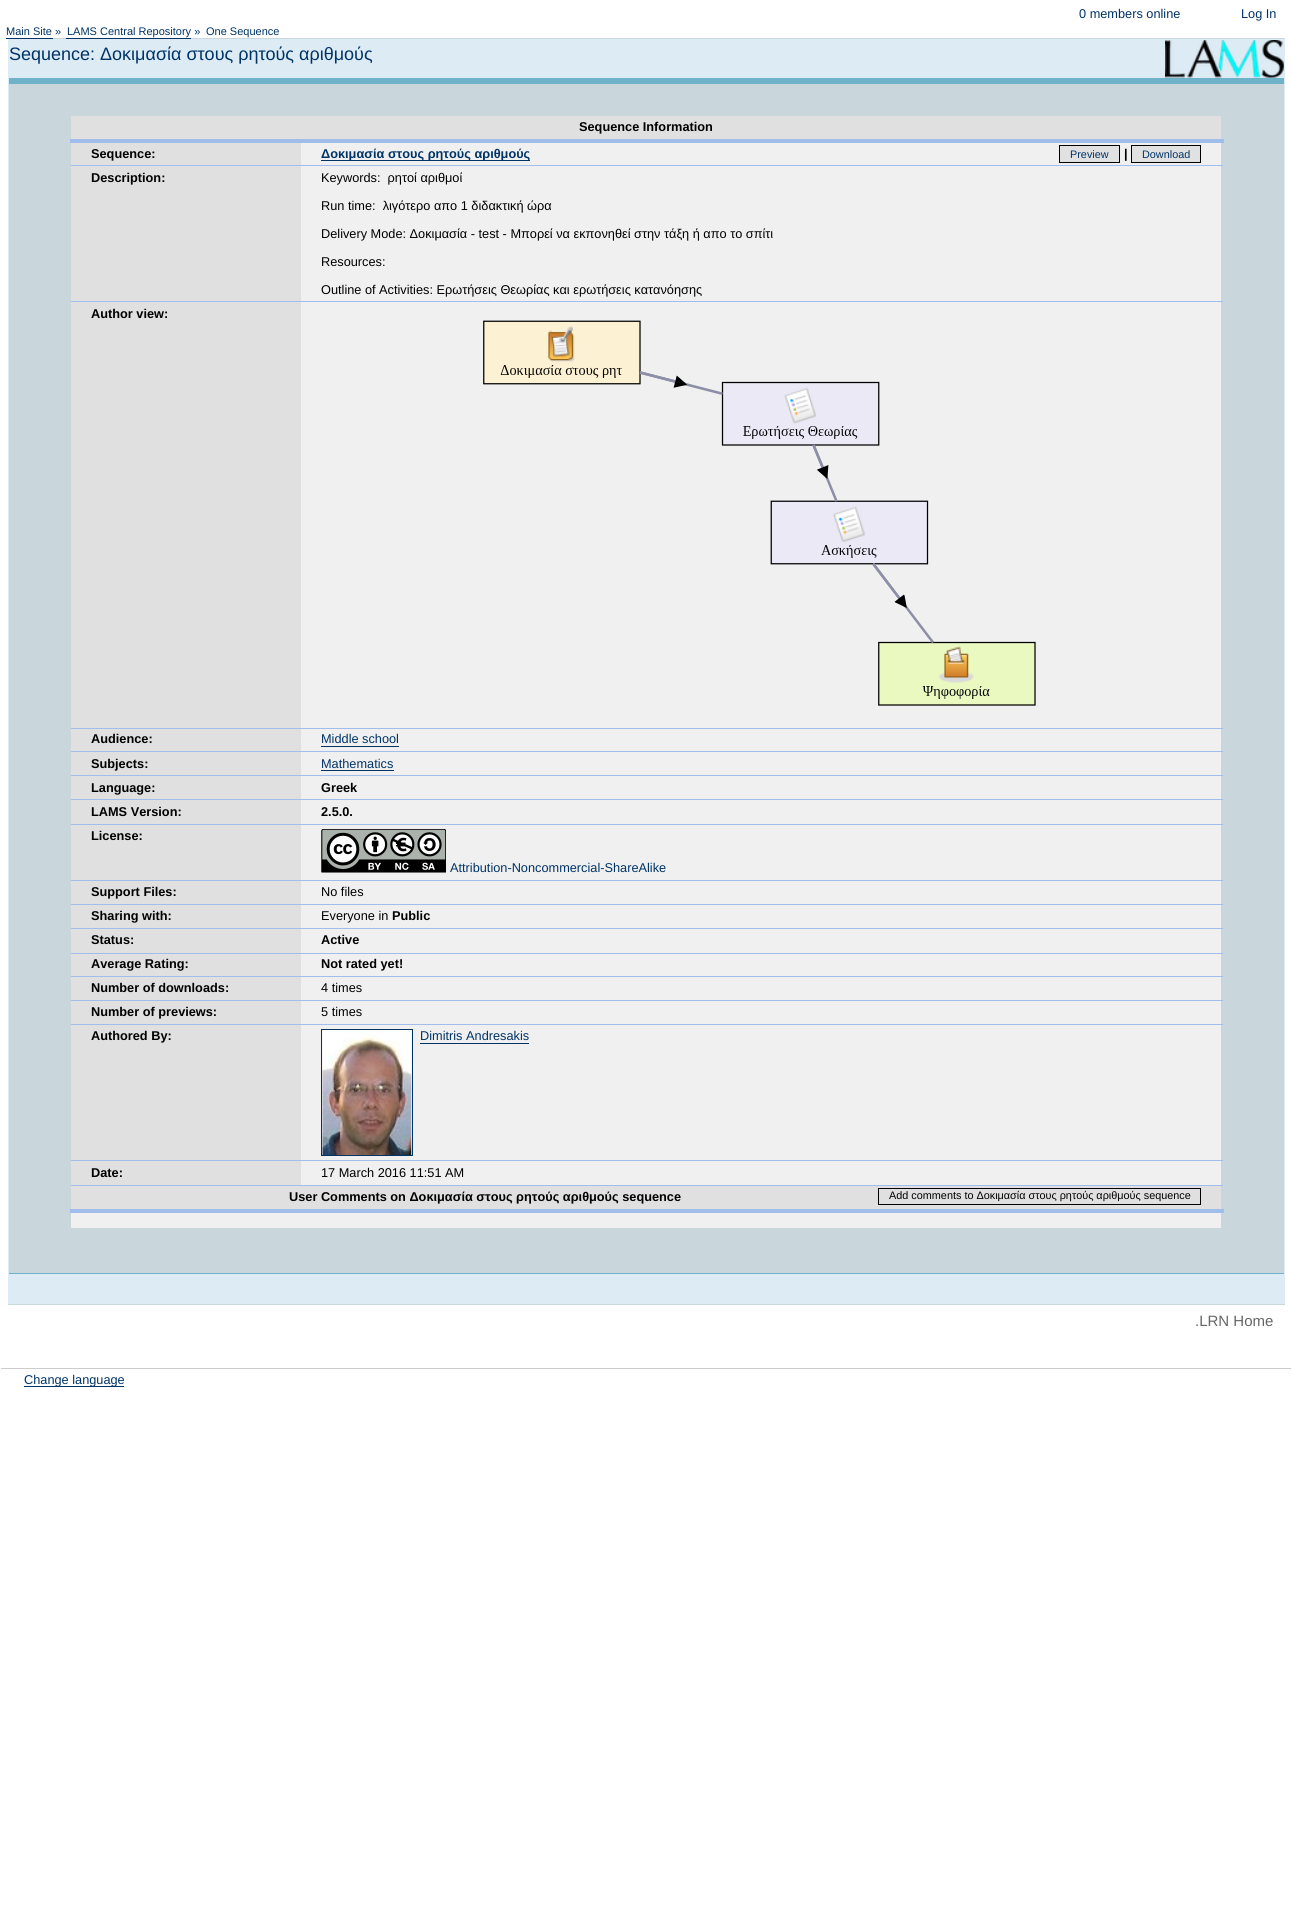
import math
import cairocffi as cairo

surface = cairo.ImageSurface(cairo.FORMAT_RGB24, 1292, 1912)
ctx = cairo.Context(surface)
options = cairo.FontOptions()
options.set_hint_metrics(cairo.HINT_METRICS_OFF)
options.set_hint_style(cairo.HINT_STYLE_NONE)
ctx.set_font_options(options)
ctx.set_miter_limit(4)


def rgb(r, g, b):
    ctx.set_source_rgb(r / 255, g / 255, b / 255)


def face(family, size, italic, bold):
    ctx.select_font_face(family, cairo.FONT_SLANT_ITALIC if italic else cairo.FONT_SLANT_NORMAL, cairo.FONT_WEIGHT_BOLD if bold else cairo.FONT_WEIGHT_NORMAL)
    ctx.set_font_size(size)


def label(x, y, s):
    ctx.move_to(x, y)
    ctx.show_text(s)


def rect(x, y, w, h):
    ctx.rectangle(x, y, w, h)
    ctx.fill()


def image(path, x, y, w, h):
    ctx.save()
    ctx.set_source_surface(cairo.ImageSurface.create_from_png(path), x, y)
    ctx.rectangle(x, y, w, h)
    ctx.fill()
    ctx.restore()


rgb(255, 255, 255)
ctx.paint()
face('Liberation Sans', 12.75, 0, 0)
rgb(0, 51, 102)
label(1079, 18, '0 members online')
label(1241, 18, 'Log In')
face('Liberation Sans', 11, 0, 0)
label(6, 35, 'Main Site »')
rect(6, 38, 47, 1)
label(67, 35, 'LAMS Central Repository »')
rgb(201, 215, 220)
rect(53, 38, 1232, 1)
rgb(0, 51, 102)
rect(66, 38, 125, 1)
label(206, 35, 'One Sequence')
rgb(221, 235, 245)
rect(8, 39, 1277, 1265)
rgb(201, 215, 220)
rect(8, 1304, 1277, 1)
face('Liberation Sans', 18, 0, 0)
rgb(0, 51, 102)
label(9, 60, 'Sequence: Δοκιμασία στους ρητούς αριθμούς')
image('image0.png', 1165, 40, 119, 38)
rgb(201, 215, 220)
rect(9, 84, 1275, 1189)
rgb(109, 178, 201)
rect(9, 78, 1275, 6)
rect(9, 1273, 1275, 1)
rgb(224, 224, 224)
rect(71, 116, 1150, 23)
rgb(160, 189, 235)
rect(70, 139, 1154, 4)
face('Liberation Sans', 12.75, 0, 1)
rgb(0, 0, 0)
label(579, 131, 'Sequence Information')
rgb(224, 224, 224)
rect(71, 143, 230, 22)
rgb(0, 0, 0)
label(91, 158, 'Sequence:')
rgb(240, 240, 240)
rect(301, 143, 920, 22)
rgb(160, 189, 235)
rect(71, 165, 1152, 1)
rgb(0, 51, 102)
rect(321, 160, 209, 1)
label(321, 158, 'Δοκιμασία στους ρητούς αριθμούς')
rgb(225, 225, 225)
ctx.rectangle(1059.5, 145.5, 60, 17)
ctx.fill_preserve()
rgb(0, 0, 0)
ctx.set_line_width(1)
ctx.stroke()
face('Liberation Sans', 10.85, 0, 0)
rgb(0, 51, 102)
label(1070, 158, 'Preview')
face('Liberation Sans', 12.75, 0, 1)
rgb(0, 0, 0)
label(1124, 158, '|')
rgb(225, 225, 225)
ctx.rectangle(1131.5, 145.5, 69, 17)
ctx.fill_preserve()
rgb(0, 0, 0)
ctx.stroke()
face('Liberation Sans', 10.85, 0, 0)
rgb(0, 51, 102)
label(1142, 158, 'Download')
rgb(224, 224, 224)
rect(71, 166, 230, 562)
face('Liberation Sans', 12.75, 0, 1)
rgb(0, 0, 0)
label(91, 182, 'Description:')
rgb(240, 240, 240)
rect(301, 166, 920, 562)
rgb(160, 189, 235)
rect(71, 301, 1152, 1)
face('Liberation Sans', 12.75, 0, 0)
rgb(0, 0, 0)
label(321, 182, 'Keywords:  ρητοί αριθμοί')
label(321, 210, 'Run time:  λιγότερο απο 1 διδακτική ώρα')
label(321, 238, 'Delivery Mode: Δοκιμασία - test - Μπορεί να εκπονηθεί στην τάξη ή απο το σπίτι')
label(321, 266, 'Resources:')
label(321, 294, 'Outline of Activities: Ερωτήσεις Θεωρίας και ερωτήσεις κατανόησης')
face('Liberation Sans', 12.75, 0, 1)
label(91, 318, 'Author view:')
rgb(160, 189, 235)
rect(71, 728, 1152, 1)
image('image1.png', 483, 320, 553, 386)
rgb(224, 224, 224)
rect(71, 729, 230, 46)
rgb(0, 0, 0)
label(91, 743, 'Audience:')
rgb(240, 240, 240)
rect(301, 729, 920, 46)
rgb(160, 189, 235)
rect(71, 751, 1152, 1)
face('Liberation Sans', 12.75, 0, 0)
rgb(0, 51, 102)
label(321, 743, 'Middle school')
rect(321, 746, 78, 1)
face('Liberation Sans', 12.75, 0, 1)
rgb(0, 0, 0)
label(91, 768, 'Subjects:')
rgb(160, 189, 235)
rect(71, 775, 1152, 1)
face('Liberation Sans', 12.75, 0, 0)
rgb(0, 51, 102)
label(321, 768, 'Mathematics')
rect(321, 770, 73, 1)
rgb(224, 224, 224)
rect(71, 776, 230, 23)
face('Liberation Sans', 12.75, 0, 1)
rgb(0, 0, 0)
label(91, 792, 'Language:')
rgb(240, 240, 240)
rect(301, 776, 920, 23)
rgb(160, 189, 235)
rect(71, 799, 1152, 1)
rgb(0, 0, 0)
label(321, 792, 'Greek')
rgb(224, 224, 224)
rect(71, 800, 230, 24)
rgb(0, 0, 0)
label(91, 816, 'LAMS Version:')
rgb(240, 240, 240)
rect(301, 800, 920, 24)
rgb(160, 189, 235)
rect(71, 824, 1152, 1)
rgb(0, 0, 0)
label(321, 816, '2.5.0.')
rgb(224, 224, 224)
rect(71, 825, 230, 55)
rgb(0, 0, 0)
label(91, 840, 'License:')
rgb(240, 240, 240)
rect(301, 825, 920, 55)
rgb(160, 189, 235)
rect(71, 880, 1152, 1)
image('image2.png', 321, 829, 125, 44)
face('Liberation Sans', 12.75, 0, 0)
rgb(0, 51, 102)
label(450, 872, 'Attribution-Noncommercial-ShareAlike')
rgb(224, 224, 224)
rect(71, 881, 230, 23)
face('Liberation Sans', 12.75, 0, 1)
rgb(0, 0, 0)
label(91, 896, 'Support Files:')
rgb(240, 240, 240)
rect(301, 881, 920, 23)
rgb(160, 189, 235)
rect(71, 904, 1152, 1)
face('Liberation Sans', 12.75, 0, 0)
rgb(0, 0, 0)
label(321, 896, 'No files')
rgb(224, 224, 224)
rect(71, 905, 230, 23)
face('Liberation Sans', 12.75, 0, 1)
rgb(0, 0, 0)
label(91, 920, 'Sharing with:')
rgb(240, 240, 240)
rect(301, 905, 920, 23)
rgb(160, 189, 235)
rect(71, 928, 1152, 1)
face('Liberation Sans', 12.75, 0, 0)
rgb(0, 0, 0)
label(321, 920, 'Everyone in')
face('Liberation Sans', 12.75, 0, 1)
label(392, 920, 'Public')
rgb(224, 224, 224)
rect(71, 929, 230, 24)
rgb(0, 0, 0)
label(91, 944, 'Status:')
rgb(240, 240, 240)
rect(301, 929, 920, 24)
rgb(160, 189, 235)
rect(71, 953, 1152, 1)
rgb(0, 0, 0)
label(321, 944, 'Active')
rgb(224, 224, 224)
rect(71, 954, 230, 22)
rgb(0, 0, 0)
label(91, 968, 'Average Rating:')
rgb(240, 240, 240)
rect(301, 954, 920, 22)
rgb(160, 189, 235)
rect(71, 976, 1152, 1)
rgb(0, 0, 0)
label(321, 968, 'Not rated yet!')
rgb(224, 224, 224)
rect(71, 977, 230, 23)
rgb(0, 0, 0)
label(91, 992, 'Number of downloads:')
rgb(240, 240, 240)
rect(301, 977, 920, 23)
rgb(160, 189, 235)
rect(71, 1000, 1152, 1)
face('Liberation Sans', 12.75, 0, 0)
rgb(0, 0, 0)
label(321, 992, '4 times')
rgb(224, 224, 224)
rect(71, 1001, 230, 23)
face('Liberation Sans', 12.75, 0, 1)
rgb(0, 0, 0)
label(91, 1016, 'Number of previews:')
rgb(240, 240, 240)
rect(301, 1001, 920, 23)
rgb(160, 189, 235)
rect(71, 1024, 1152, 1)
face('Liberation Sans', 12.75, 0, 0)
rgb(0, 0, 0)
label(321, 1016, '5 times')
rgb(224, 224, 224)
rect(71, 1025, 230, 135)
face('Liberation Sans', 12.75, 0, 1)
rgb(0, 0, 0)
label(91, 1040, 'Authored By:')
rgb(240, 240, 240)
rect(301, 1025, 920, 135)
rgb(160, 189, 235)
rect(71, 1160, 1152, 1)
ctx.rectangle(321.5, 1029.5, 91, 126)
rgb(0, 51, 102)
ctx.stroke()
image('image3.png', 322, 1030, 90, 125)
face('Liberation Sans', 12.75, 0, 0)
label(420, 1040, 'Dimitris Andresakis')
rect(420, 1043, 109, 1)
rgb(224, 224, 224)
rect(71, 1161, 230, 24)
face('Liberation Sans', 12.75, 0, 1)
rgb(0, 0, 0)
label(91, 1177, 'Date:')
rgb(240, 240, 240)
rect(301, 1161, 920, 24)
rgb(160, 189, 235)
rect(71, 1185, 1152, 1)
face('Liberation Sans', 12.75, 0, 0)
rgb(0, 0, 0)
label(321, 1177, '17 March 2016 11:51 AM')
rgb(224, 224, 224)
rect(71, 1186, 1150, 23)
rgb(160, 189, 235)
rect(70, 1209, 1154, 4)
face('Liberation Sans', 12.75, 0, 1)
rgb(0, 0, 0)
label(289, 1201, 'User Comments on Δοκιμασία στους ρητούς αριθμούς sequence')
ctx.rectangle(878.5, 1188.5, 322, 16)
ctx.stroke()
face('Liberation Sans', 10.85, 0, 0)
label(889, 1199, 'Add comments to Δοκιμασία στους ρητούς αριθμούς sequence')
rgb(240, 240, 240)
rect(71, 1213, 1150, 15)
face('Liberation Sans', 15, 0, 0)
rgb(102, 102, 102)
label(1195, 1326, '.LRN Home')
rgb(204, 204, 204)
rect(1, 1368, 1290, 1)
rgb(0, 51, 102)
rect(24, 1386, 100, 1)
face('Liberation Sans', 12.75, 0, 0)
label(24, 1384, 'Change language')
surface.write_to_png('render.png')
